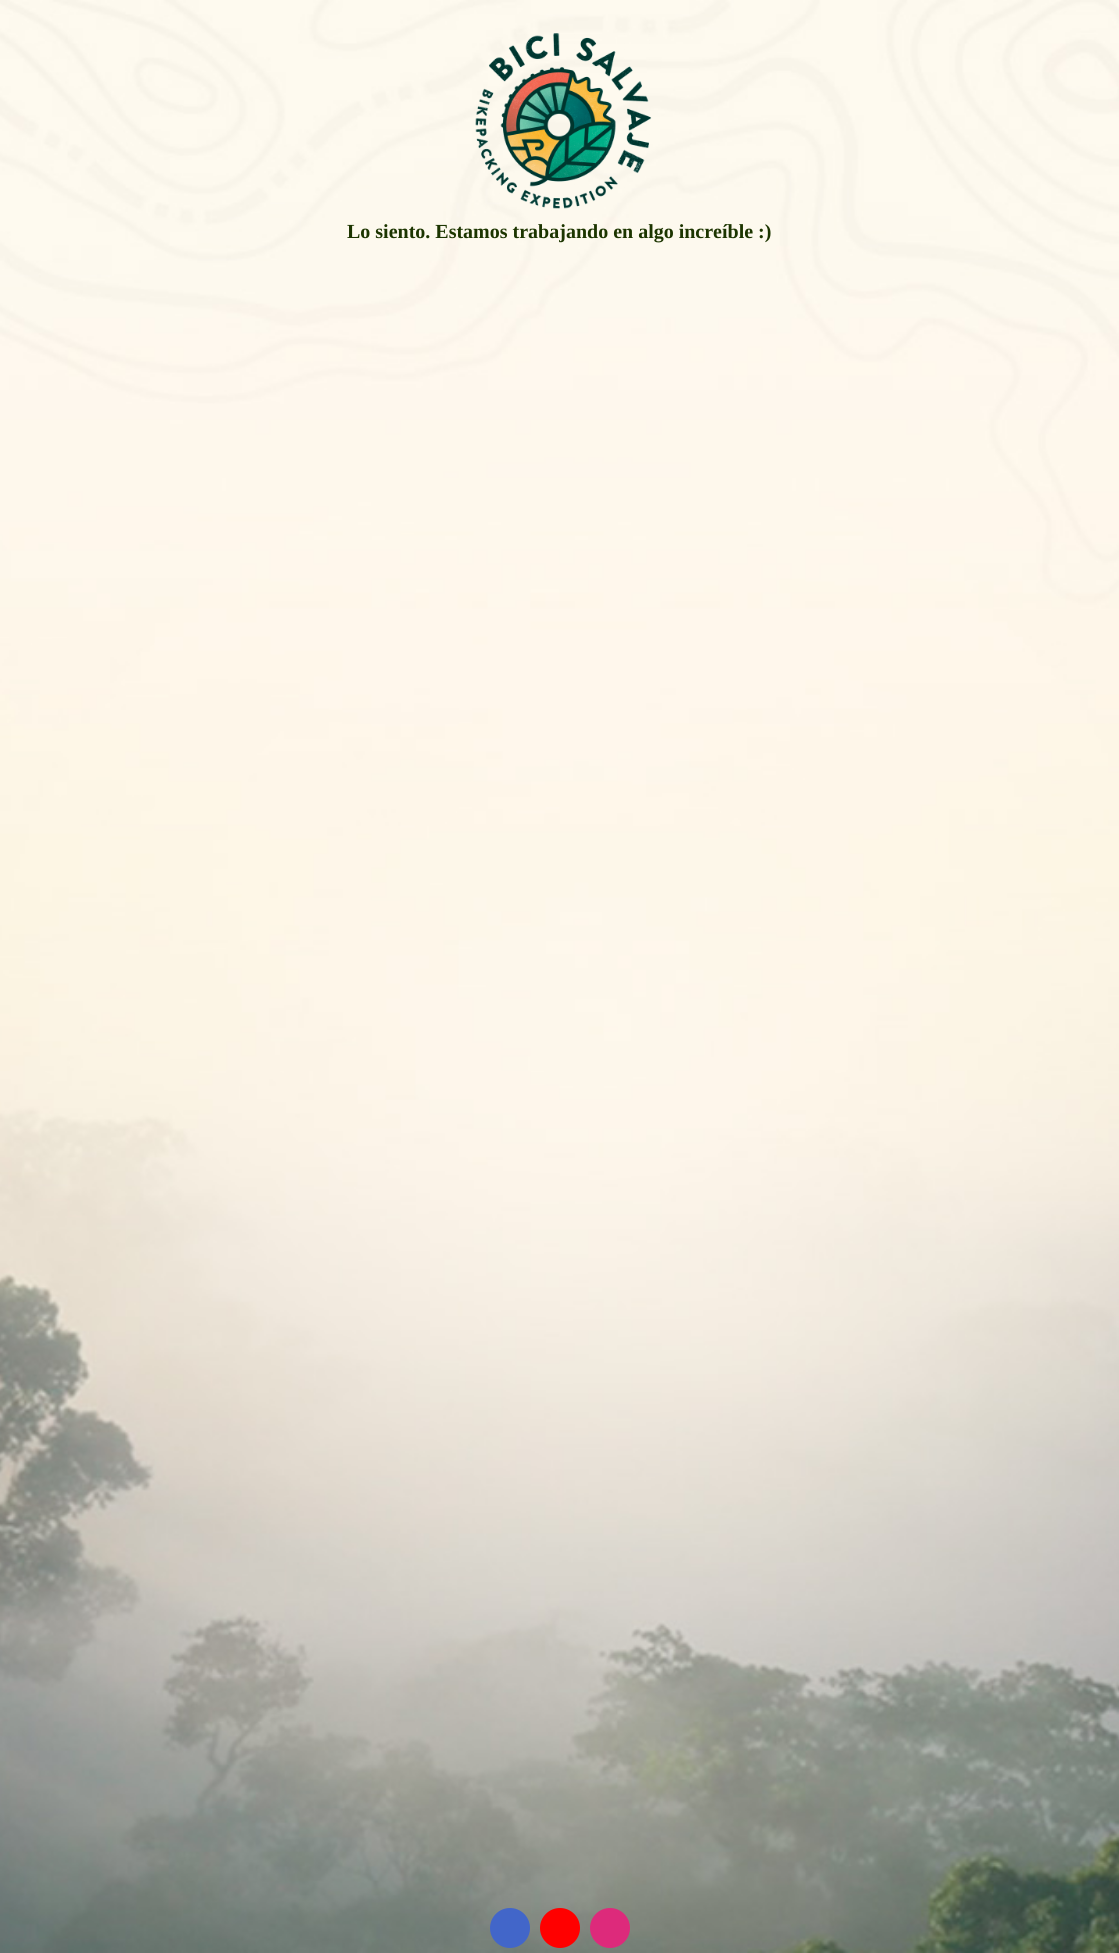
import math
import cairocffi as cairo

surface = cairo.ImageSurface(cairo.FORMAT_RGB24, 1119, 1953)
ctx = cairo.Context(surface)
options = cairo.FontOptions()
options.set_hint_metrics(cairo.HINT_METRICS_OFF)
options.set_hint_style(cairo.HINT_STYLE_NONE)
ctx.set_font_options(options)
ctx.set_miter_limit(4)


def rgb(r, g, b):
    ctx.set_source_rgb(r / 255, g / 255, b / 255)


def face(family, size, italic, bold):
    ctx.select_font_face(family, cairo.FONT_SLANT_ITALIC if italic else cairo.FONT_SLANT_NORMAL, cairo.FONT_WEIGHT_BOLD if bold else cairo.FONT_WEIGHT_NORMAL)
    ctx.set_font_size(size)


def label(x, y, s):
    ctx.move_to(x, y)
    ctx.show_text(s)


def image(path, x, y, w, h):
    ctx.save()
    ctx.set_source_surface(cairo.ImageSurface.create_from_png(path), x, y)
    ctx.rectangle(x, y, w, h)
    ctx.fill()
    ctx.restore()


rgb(255, 255, 255)
ctx.paint()
image('image0.png', 0, 0, 1119, 1953)
image('image1.png', 475, 33, 177, 176)
face('Liberation Serif', 20, 0, 1)
rgb(28, 53, 0)
label(347, 238, 'Lo siento. Estamos trabajando en algo increíble :)')
rgb(66, 102, 201)
ctx.new_path()
ctx.arc(510, 1928, 20, 0, 2 * math.pi)
ctx.fill()
rgb(255, 0, 0)
ctx.arc(560, 1928, 20, 0, 2 * math.pi)
ctx.fill()
rgb(221, 42, 123)
ctx.arc(610, 1928, 20, 0, 2 * math.pi)
ctx.fill()
surface.write_to_png('render.png')
